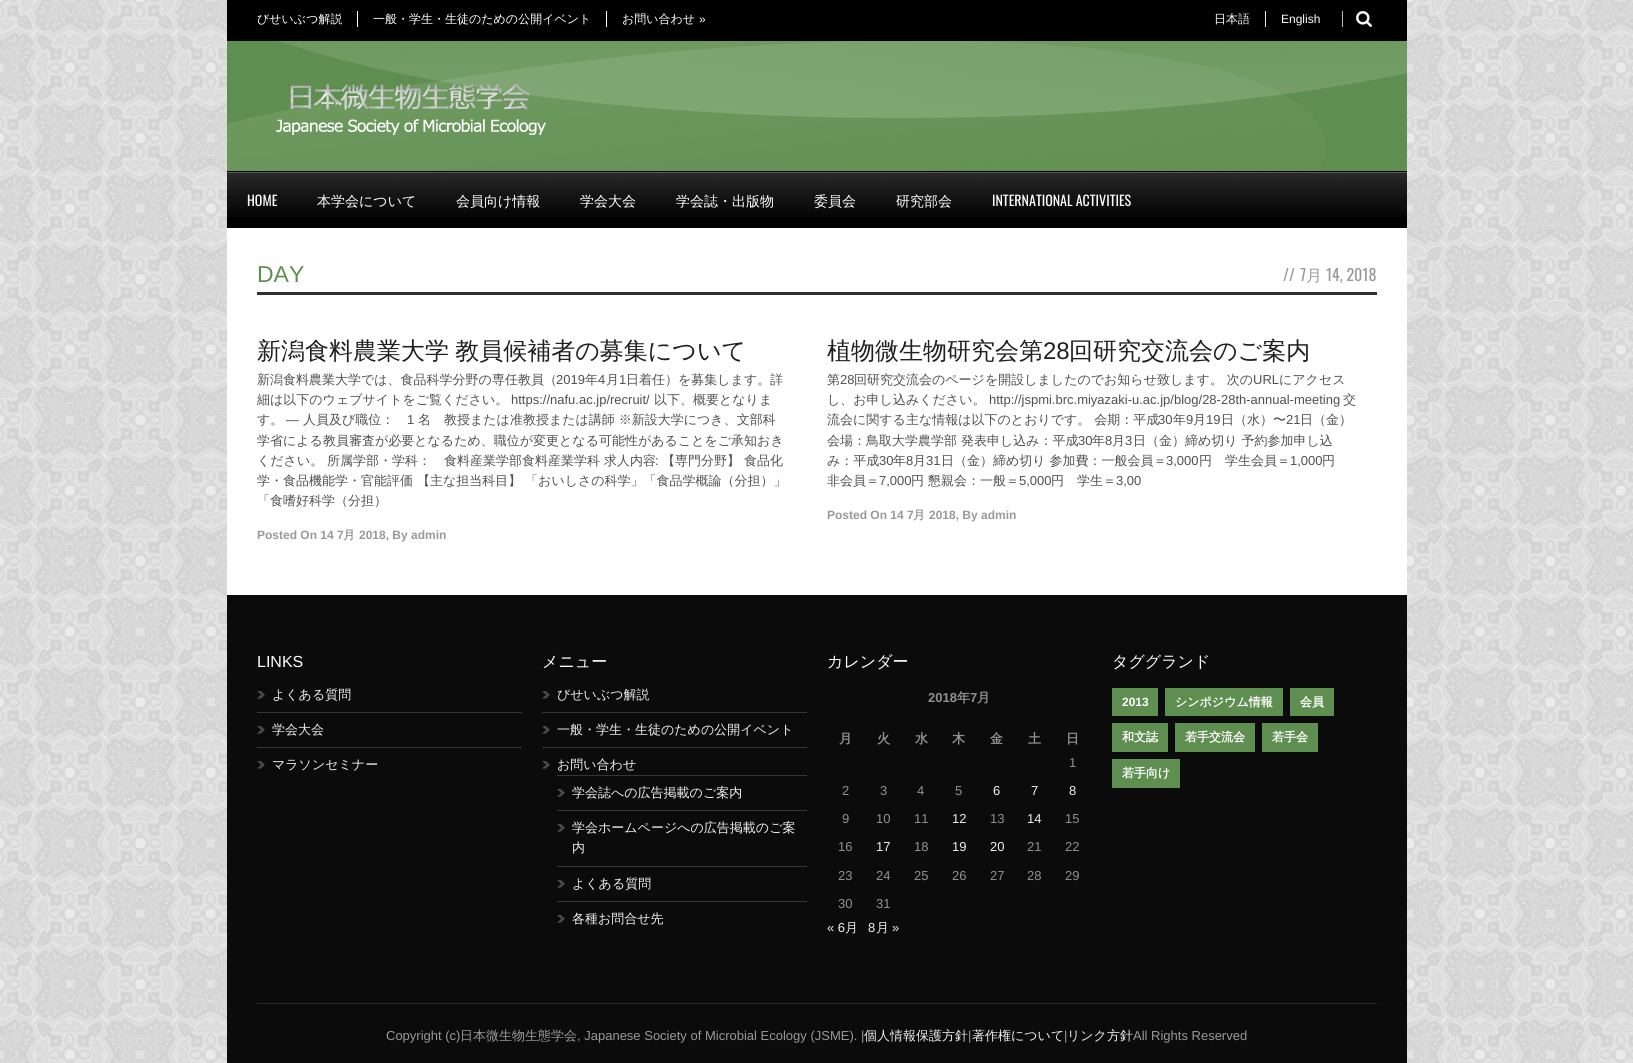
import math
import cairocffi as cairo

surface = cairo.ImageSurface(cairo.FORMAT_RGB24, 1633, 1063)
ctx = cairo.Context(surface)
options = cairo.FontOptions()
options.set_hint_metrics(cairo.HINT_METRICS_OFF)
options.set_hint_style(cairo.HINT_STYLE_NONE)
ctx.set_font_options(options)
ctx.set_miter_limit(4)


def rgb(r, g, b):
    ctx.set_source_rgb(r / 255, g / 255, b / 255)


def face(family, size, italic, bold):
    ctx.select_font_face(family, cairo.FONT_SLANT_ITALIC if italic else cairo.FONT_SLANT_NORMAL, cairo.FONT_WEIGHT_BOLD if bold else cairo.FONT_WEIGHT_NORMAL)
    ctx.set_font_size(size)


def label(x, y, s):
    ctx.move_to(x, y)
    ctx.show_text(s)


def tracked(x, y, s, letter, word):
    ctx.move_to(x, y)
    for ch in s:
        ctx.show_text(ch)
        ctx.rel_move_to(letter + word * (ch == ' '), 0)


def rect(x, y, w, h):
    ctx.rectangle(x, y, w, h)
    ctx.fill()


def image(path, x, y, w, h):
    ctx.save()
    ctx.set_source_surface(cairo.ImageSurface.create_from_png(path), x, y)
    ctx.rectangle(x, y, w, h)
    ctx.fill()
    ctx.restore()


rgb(255, 255, 255)
ctx.paint()
image('image0.png', 0, 0, 1633, 1063)
rgb(0, 0, 0)
rect(227, 0, 1180, 41)
face('WenQuanYi Zen Hei Medium', 12, 0, 0)
rgb(255, 255, 255)
label(257, 23, 'びせいぶつ解説')
rect(357, 11, 1, 16)
label(373, 23, '一般・学生・生徒のための公開イベント')
rect(606, 11, 1, 16)
label(622, 23, 'お問い合わせ')
face('Liberation Sans', 12, 0, 0)
label(699, 23, '»')
face('WenQuanYi Zen Hei Medium', 12, 0, 0)
label(1214, 23, '日本語')
rgb(230, 230, 230)
rect(1265, 11, 1, 16)
face('Liberation Sans', 12, 0, 0)
rgb(255, 255, 255)
label(1281, 23, 'English')
image('image1.png', 1356, 11, 16, 16)
rgb(186, 186, 186)
rect(1342, 11, 1, 16)
rgb(95, 143, 80)
rect(227, 41, 1180, 130)
image('image2.png', 227, 41, 1180, 130)
image('image3.png', 276, 84, 270, 51)
rgb(0, 0, 0)
rect(227, 171, 1180, 57)
image('image4.png', 1152, 172, 255, 45)
image('image5.png', 227, 172, 70, 45)
face('Oswald', 14, 0, 0)
rgb(255, 255, 255)
label(247, 206, 'HOME')
image('image6.png', 297, 172, 139, 45)
face('WenQuanYi Zen Hei Medium', 14, 0, 0)
label(317, 206, '本学会について')
image('image7.png', 436, 172, 124, 45)
label(456, 206, '会員向け情報')
image('image8.png', 560, 172, 96, 45)
label(580, 206, '学会大会')
image('image9.png', 656, 172, 138, 45)
label(676, 206, '学会誌・出版物')
image('image10.png', 794, 172, 82, 45)
label(814, 206, '委員会')
image('image8.png', 876, 172, 96, 45)
label(896, 206, '研究部会')
image('image11.png', 972, 172, 180, 45)
face('Oswald', 14, 0, 0)
label(992, 206, 'INTERNATIONAL ACTIVITIES')
rect(227, 228, 1180, 367)
rgb(49, 49, 49)
rect(257, 292, 1120, 3)
face('Liberation Sans', 23, 0, 0)
rgb(95, 143, 80)
label(257, 282, 'DAY')
face('Oswald', 16, 0, 0)
rgb(153, 153, 153)
label(1283, 281, '//')
label(1300, 281, '7')
face('WenQuanYi Zen Hei Medium', 16, 0, 0)
label(1306, 281, '月')
face('Oswald', 16, 0, 0)
label(1326, 281, '14, 2018')
face('WenQuanYi Zen Hei Medium', 24, 0, 0)
rgb(31, 31, 31)
tracked(257, 359, '新潟食料農業大学 教員候補者の募集について', 0, -1)
face('WenQuanYi Zen Hei Medium', 13, 0, 0)
rgb(80, 80, 80)
label(257, 384, '新潟食料農業大学では、食品科学分野の専任教員（')
face('Liberation Sans', 13, 0, 0)
label(556, 384, '2019')
face('WenQuanYi Zen Hei Medium', 13, 0, 0)
label(585, 384, '年')
face('Liberation Sans', 13, 0, 0)
label(598, 384, '4')
face('WenQuanYi Zen Hei Medium', 13, 0, 0)
label(606, 384, '月')
face('Liberation Sans', 13, 0, 0)
label(619, 384, '1')
face('WenQuanYi Zen Hei Medium', 13, 0, 0)
label(626, 384, '日着任）を募集します。詳')
ctx.save()
ctx.rectangle(257, 335, 550, 210)
ctx.clip()
label(257, 404, '細は以下のウェブサイトをご覧ください。')
ctx.restore()
face('Liberation Sans', 13, 0, 0)
label(511, 404, 'https://nafu.ac.jp/recruit/')
face('WenQuanYi Zen Hei Medium', 13, 0, 0)
label(654, 404, '以下、概要となりま')
label(257, 424, 'す。')
face('Liberation Sans', 13, 0, 0)
label(286, 424, '—')
face('WenQuanYi Zen Hei Medium', 13, 0, 0)
label(303, 424, '人員及び職位：')
face('Liberation Sans', 13, 0, 0)
label(407, 424, '1')
face('WenQuanYi Zen Hei Medium', 13, 0, 0)
label(418, 424, '名　教授または准教授または講師 ※新設大学につき、文部科')
label(257, 445, '学省による教員審査が必要となるため、職位が変更となる可能性があることをご承知おき')
label(257, 465, 'ください。 所属学部・学科：　食料産業学部食料産業学科 求人内容')
face('Liberation Sans', 13, 0, 0)
label(655, 465, ':')
face('WenQuanYi Zen Hei Medium', 13, 0, 0)
label(662, 465, '【専門分野】 食品化')
label(257, 485, '学・食品機能学・官能評価 【主な担当科目】 「おいしさの科学」「食品学概論（分担）」')
label(257, 505, '「食嗜好科学（分担）')
face('Liberation Sans', 12, 0, 1)
rgb(153, 153, 153)
label(257, 539, 'Posted On 14 7')
face('WenQuanYi Zen Hei', 12, 0, 1)
label(343, 539, '月')
face('Liberation Sans', 12, 0, 1)
label(359, 539, '2018, By admin')
face('WenQuanYi Zen Hei Medium', 24, 0, 0)
rgb(31, 31, 31)
label(827, 359, '植物微生物研究会第')
face('Liberation Sans', 24, 0, 0)
label(1043, 359, '28')
face('WenQuanYi Zen Hei Medium', 24, 0, 0)
label(1069, 359, '回研究交流会のご案内')
face('WenQuanYi Zen Hei Medium', 13, 0, 0)
rgb(80, 80, 80)
label(827, 384, '第')
face('Liberation Sans', 13, 0, 0)
label(840, 384, '28')
face('WenQuanYi Zen Hei Medium', 13, 0, 0)
label(854, 384, '回研究交流会のページを開設しましたのでお知らせ致します。 次の')
face('Liberation Sans', 13, 0, 0)
label(1253, 384, 'URL')
face('WenQuanYi Zen Hei Medium', 13, 0, 0)
label(1279, 384, 'にアクセス')
label(827, 404, 'し、お申し込みください。')
face('Liberation Sans', 13, 0, 0)
label(989, 404, 'http://jspmi.brc.miyazaki-u.ac.jp/blog/28-28th-annual-meeting')
face('WenQuanYi Zen Hei Medium', 13, 0, 0)
label(1343, 404, '交')
label(827, 424, '流会に関する主な情報は以下のとおりです。 会期：平成')
face('Liberation Sans', 13, 0, 0)
label(1158, 424, '30')
face('WenQuanYi Zen Hei Medium', 13, 0, 0)
label(1173, 424, '年')
face('Liberation Sans', 13, 0, 0)
label(1186, 424, '9')
face('WenQuanYi Zen Hei Medium', 13, 0, 0)
label(1193, 424, '月')
face('Liberation Sans', 13, 0, 0)
label(1206, 424, '19')
face('WenQuanYi Zen Hei Medium', 13, 0, 0)
label(1221, 424, '日（水）〜')
face('Liberation Sans', 13, 0, 0)
label(1286, 424, '21')
face('WenQuanYi Zen Hei Medium', 13, 0, 0)
label(1300, 424, '日（金）')
label(827, 445, '会場：鳥取大学農学部 発表申し込み：平成')
face('Liberation Sans', 13, 0, 0)
label(1078, 445, '30')
face('WenQuanYi Zen Hei Medium', 13, 0, 0)
label(1092, 445, '年')
face('Liberation Sans', 13, 0, 0)
label(1105, 445, '8')
face('WenQuanYi Zen Hei Medium', 13, 0, 0)
label(1112, 445, '月')
face('Liberation Sans', 13, 0, 0)
label(1125, 445, '3')
face('WenQuanYi Zen Hei Medium', 13, 0, 0)
label(1133, 445, '日（金）締め切り 予約参加申し込')
label(827, 465, 'み：平成')
face('Liberation Sans', 13, 0, 0)
label(879, 465, '30')
face('WenQuanYi Zen Hei Medium', 13, 0, 0)
label(893, 465, '年')
face('Liberation Sans', 13, 0, 0)
label(906, 465, '8')
face('WenQuanYi Zen Hei Medium', 13, 0, 0)
label(913, 465, '月')
face('Liberation Sans', 13, 0, 0)
label(926, 465, '31')
face('WenQuanYi Zen Hei Medium', 13, 0, 0)
label(941, 465, '日（金）締め切り 参加費：一般会員＝')
face('Liberation Sans', 13, 0, 0)
label(1166, 465, '3,000')
face('WenQuanYi Zen Hei Medium', 13, 0, 0)
label(1199, 465, '円　学生会員＝')
face('Liberation Sans', 13, 0, 0)
label(1290, 465, '1,000')
face('WenQuanYi Zen Hei Medium', 13, 0, 0)
label(1322, 465, '円')
label(827, 485, '非会員＝')
face('Liberation Sans', 13, 0, 0)
label(879, 485, '7,000')
face('WenQuanYi Zen Hei Medium', 13, 0, 0)
label(911, 485, '円 懇親会：一般＝')
face('Liberation Sans', 13, 0, 0)
label(1019, 485, '5,000')
face('WenQuanYi Zen Hei Medium', 13, 0, 0)
label(1051, 485, '円　学生＝')
face('Liberation Sans', 13, 0, 0)
label(1116, 485, '3,00')
face('Liberation Sans', 12, 0, 1)
rgb(153, 153, 153)
label(827, 519, 'Posted On 14 7')
face('WenQuanYi Zen Hei', 12, 0, 1)
label(913, 519, '月')
face('Liberation Sans', 12, 0, 1)
label(929, 519, '2018, By admin')
rgb(11, 11, 11)
rect(227, 595, 1180, 468)
face('Liberation Sans', 16, 0, 0)
rgb(255, 255, 255)
label(257, 667, 'LINKS')
image('image12.png', 257, 691, 8, 8)
rgb(53, 53, 53)
rect(257, 712, 265, 1)
face('WenQuanYi Zen Hei Medium', 13, 0, 0)
rgb(239, 239, 239)
label(272, 699, 'よくある質問')
image('image12.png', 257, 726, 8, 8)
rgb(53, 53, 53)
rect(257, 747, 265, 1)
rgb(239, 239, 239)
label(272, 734, '学会大会')
image('image12.png', 257, 761, 8, 8)
label(272, 769, 'マラソンセミナー')
face('WenQuanYi Zen Hei Medium', 16, 0, 0)
rgb(255, 255, 255)
label(542, 667, 'メニュー')
image('image13.png', 542, 691, 8, 8)
rgb(53, 53, 53)
rect(542, 712, 265, 1)
face('WenQuanYi Zen Hei Medium', 13, 0, 0)
rgb(239, 239, 239)
label(557, 699, 'びせいぶつ解説')
image('image13.png', 542, 726, 8, 8)
rgb(53, 53, 53)
rect(542, 747, 265, 1)
rgb(239, 239, 239)
label(557, 734, '一般・学生・生徒のための公開イベント')
image('image13.png', 542, 761, 8, 8)
label(557, 769, 'お問い合わせ')
rgb(53, 53, 53)
rect(557, 775, 250, 1)
image('image13.png', 557, 789, 8, 8)
rect(557, 810, 250, 1)
rgb(239, 239, 239)
label(572, 797, '学会誌への広告掲載のご案内')
image('image13.png', 557, 824, 8, 8)
rgb(53, 53, 53)
rect(557, 866, 250, 1)
rgb(239, 239, 239)
label(572, 832, '学会ホームページへの広告掲載のご案')
label(572, 852, '内')
image('image13.png', 557, 880, 8, 8)
rgb(53, 53, 53)
rect(557, 901, 250, 1)
rgb(239, 239, 239)
label(572, 888, 'よくある質問')
image('image13.png', 557, 915, 8, 8)
label(572, 923, '各種お問合せ先')
face('WenQuanYi Zen Hei Medium', 16, 0, 0)
rgb(255, 255, 255)
label(827, 667, 'カレンダー')
face('Liberation Sans', 13, 0, 1)
rgb(145, 145, 145)
label(928, 702, '2018')
face('WenQuanYi Zen Hei', 13, 0, 1)
label(957, 702, '年')
face('Liberation Sans', 13, 0, 1)
label(970, 702, '7')
face('WenQuanYi Zen Hei', 13, 0, 1)
label(977, 702, '月')
label(839, 743, '月')
label(877, 743, '火')
label(915, 743, '水')
label(952, 743, '木')
label(990, 743, '金')
label(1028, 743, '土')
label(1066, 743, '日')
face('Liberation Sans', 13, 0, 0)
label(1069, 767, '1')
label(842, 795, '2')
label(880, 795, '3')
label(917, 795, '4')
label(955, 795, '5')
rgb(239, 239, 239)
label(993, 795, '6')
label(1031, 795, '7')
label(1069, 795, '8')
rgb(145, 145, 145)
label(842, 823, '9')
label(876, 823, '10')
label(914, 823, '11')
rgb(239, 239, 239)
label(952, 823, '12')
rgb(145, 145, 145)
label(990, 823, '13')
rgb(239, 239, 239)
label(1027, 823, '14')
rgb(145, 145, 145)
label(1065, 823, '15')
label(838, 851, '16')
rgb(239, 239, 239)
label(876, 851, '17')
rgb(145, 145, 145)
label(914, 851, '18')
rgb(239, 239, 239)
label(952, 851, '19')
label(990, 851, '20')
rgb(145, 145, 145)
label(1027, 851, '21')
label(1065, 851, '22')
label(838, 880, '23')
label(876, 880, '24')
label(914, 880, '25')
label(952, 880, '26')
label(990, 880, '27')
label(1027, 880, '28')
label(1065, 880, '29')
label(838, 908, '30')
label(876, 908, '31')
rgb(239, 239, 239)
label(827, 932, '« 6')
face('WenQuanYi Zen Hei Medium', 13, 0, 0)
label(845, 932, '月')
face('Liberation Sans', 13, 0, 0)
label(868, 932, '8')
face('WenQuanYi Zen Hei Medium', 13, 0, 0)
label(876, 932, '月')
face('Liberation Sans', 13, 0, 0)
label(892, 932, '»')
face('WenQuanYi Zen Hei Medium', 16, 0, 0)
rgb(255, 255, 255)
label(1112, 667, 'タググランド')
rgb(95, 143, 80)
rect(1112, 688, 46, 28)
face('Liberation Sans', 12, 0, 1)
rgb(255, 255, 255)
label(1122, 706, '2013')
rgb(95, 143, 80)
rect(1165, 688, 118, 28)
face('WenQuanYi Zen Hei', 12, 0, 1)
rgb(255, 255, 255)
label(1175, 706, 'シンポジウム情報')
rgb(95, 143, 80)
rect(1290, 688, 44, 28)
rgb(255, 255, 255)
label(1300, 706, '会員')
rgb(95, 143, 80)
rect(1112, 723, 56, 29)
rgb(255, 255, 255)
label(1122, 741, '和文誌')
rgb(95, 143, 80)
rect(1175, 723, 80, 29)
rgb(255, 255, 255)
label(1185, 741, '若手交流会')
rgb(95, 143, 80)
rect(1262, 723, 56, 29)
rgb(255, 255, 255)
label(1272, 741, '若手会')
rgb(95, 143, 80)
rect(1112, 759, 68, 29)
rgb(255, 255, 255)
label(1122, 777, '若手向け')
rgb(43, 43, 43)
rect(257, 1003, 1120, 1)
face('Liberation Sans', 13, 0, 0)
rgb(153, 153, 153)
label(386, 1040, 'Copyright (c)')
face('WenQuanYi Zen Hei Medium', 13, 0, 0)
label(460, 1040, '日本微生物生態学会')
face('Liberation Sans', 13, 0, 0)
label(577, 1040, ', Japanese Society of Microbial Ecology (JSME). |')
face('WenQuanYi Zen Hei Medium', 13, 0, 0)
rgb(239, 239, 239)
label(864, 1040, '個人情報保護方針')
face('Liberation Sans', 13, 0, 0)
rgb(153, 153, 153)
label(968, 1040, '|')
face('WenQuanYi Zen Hei Medium', 13, 0, 0)
rgb(239, 239, 239)
label(972, 1040, '著作権について')
face('Liberation Sans', 13, 0, 0)
rgb(153, 153, 153)
label(1064, 1040, '|')
face('WenQuanYi Zen Hei Medium', 13, 0, 0)
rgb(239, 239, 239)
label(1067, 1040, 'リンク方針')
face('Liberation Sans', 13, 0, 0)
rgb(153, 153, 153)
label(1133, 1040, 'All Rights Reserved')
surface.write_to_png('render.png')
